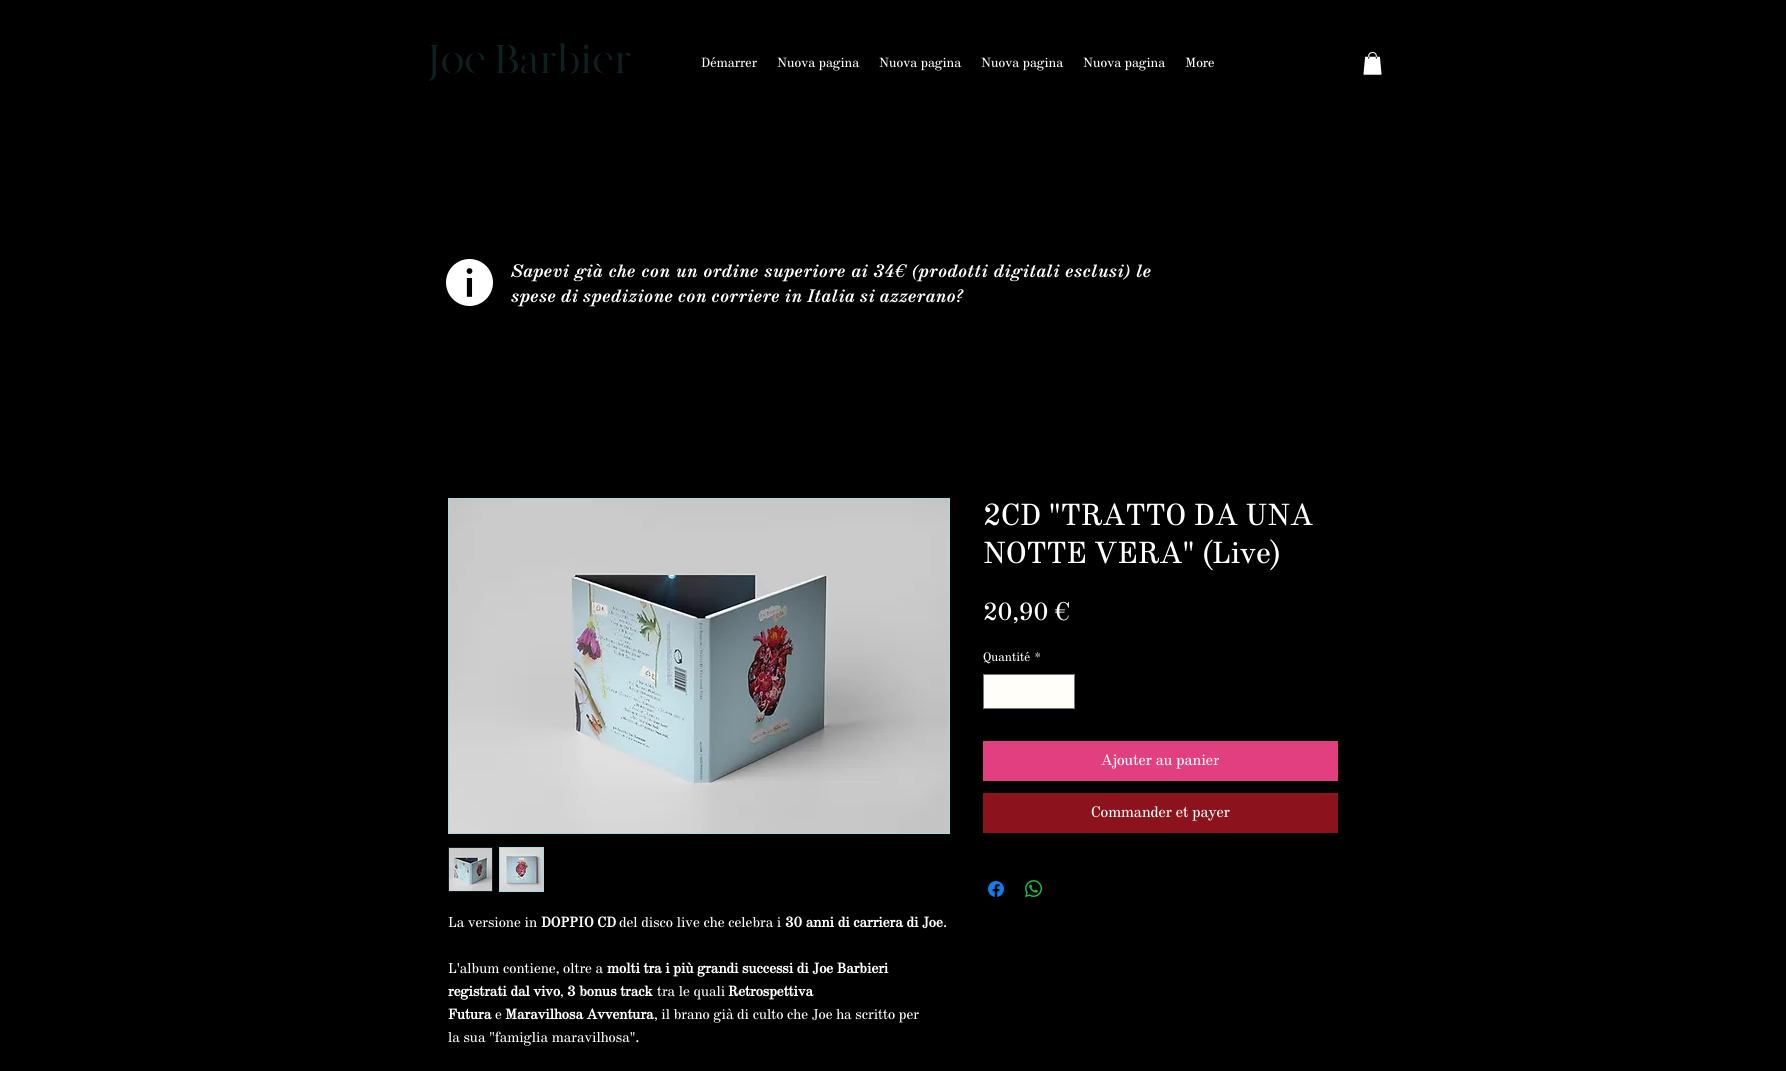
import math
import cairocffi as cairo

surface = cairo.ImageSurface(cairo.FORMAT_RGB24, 1786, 1071)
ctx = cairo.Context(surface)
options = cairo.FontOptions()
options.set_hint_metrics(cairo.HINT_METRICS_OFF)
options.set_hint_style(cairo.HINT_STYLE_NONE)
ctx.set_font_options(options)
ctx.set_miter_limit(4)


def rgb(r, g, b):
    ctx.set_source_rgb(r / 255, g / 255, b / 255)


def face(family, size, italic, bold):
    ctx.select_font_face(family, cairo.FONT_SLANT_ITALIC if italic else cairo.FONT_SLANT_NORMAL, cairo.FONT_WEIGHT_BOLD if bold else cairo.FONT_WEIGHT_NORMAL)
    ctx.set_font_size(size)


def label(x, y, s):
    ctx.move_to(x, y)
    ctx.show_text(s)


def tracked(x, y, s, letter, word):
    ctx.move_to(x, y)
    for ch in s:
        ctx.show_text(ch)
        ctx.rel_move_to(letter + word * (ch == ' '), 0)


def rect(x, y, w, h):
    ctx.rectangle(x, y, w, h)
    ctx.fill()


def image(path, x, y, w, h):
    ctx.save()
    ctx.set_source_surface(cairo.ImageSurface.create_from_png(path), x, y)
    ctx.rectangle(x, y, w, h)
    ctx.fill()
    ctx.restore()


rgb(0, 0, 0)
ctx.paint()
face('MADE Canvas', 40, 0, 0)
rgb(13, 33, 35)
label(428, 73, 'Joe Barbier')
face('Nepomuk', 14, 0, 0)
rgb(255, 255, 255)
label(701, 67, 'Démarrer')
label(777, 67, 'Nuova pagina')
label(879, 67, 'Nuova pagina')
label(981, 67, 'Nuova pagina')
label(1083, 67, 'Nuova pagina')
label(1185, 67, 'More')
image('image0.png', 1363, 52, 19, 23)
image('image1.png', 446, 259, 47, 47)
face('Nepomuk', 19, 1, 1)
tracked(511, 277, 'Sapevi già che con un ordine superiore ai 34€ (prodotti digitali esclusi) le', 0, 0.9)
label(511, 302, 'spese di spedizione con corriere in Italia si azzerano?')
face('Nepomuk', 32, 0, 0)
label(983, 525, '2CD "TRATTO DA UNA')
label(983, 563, 'NOTTE VERA" (Live)')
face('Nepomuk', 26, 0, 0)
label(983, 620, '20,90 €')
face('Nepomuk', 13, 0, 0)
label(983, 661, 'Quantité')
label(1034, 661, '*')
rgb(255, 254, 248)
ctx.rectangle(983.5, 674.5, 91, 34)
ctx.fill_preserve()
rgb(110, 121, 120)
ctx.set_line_width(1)
ctx.stroke()
rgb(255, 255, 255)
ctx.set_fill_rule(cairo.FILL_RULE_EVEN_ODD)
ctx.new_path()
ctx.move_to(1006, 692)
ctx.line_to(1006, 692.5)
ctx.line_to(994, 692.5)
ctx.line_to(994, 692)
ctx.close_path()
ctx.fill()
image('image2.png', 1058, 691, 2, 2)
rgb(226, 63, 129)
rect(983, 741, 355, 40)
face('Nepomuk', 16, 0, 0)
rgb(255, 254, 248)
label(1101, 765, 'Ajouter au panier')
rgb(140, 19, 30)
rect(983, 793, 355, 40)
rgb(255, 254, 248)
label(1091, 817, 'Commander et payer')
image('image3.png', 988, 881, 16, 16)
image('image4.png', 1025, 880, 17, 17)
ctx.rectangle(448.5, 498.5, 501, 335)
rgb(167, 217, 222)
ctx.stroke()
image('image5.png', 449, 499, 500, 334)
ctx.rectangle(448.5, 847.5, 44, 44)
rgb(13, 33, 35)
ctx.stroke()
image('image6.png', 449, 848, 43, 43)
rgb(167, 217, 222)
rect(499, 847, 45, 45)
image('image7.png', 500, 848, 43, 43)
face('Nepomuk', 15, 0, 0)
rgb(255, 255, 255)
label(448, 927, 'La versione in')
face('Nepomuk', 15, 0, 1)
label(541, 927, 'DOPPIO CD')
face('Nepomuk', 15, 0, 0)
label(619, 927, 'del disco live che celebra i')
face('Nepomuk', 15, 0, 1)
label(785, 927, '30 anni di carriera di Joe')
face('Nepomuk', 15, 0, 0)
label(943, 927, '.')
label(448, 973, 'L\'album contiene, oltre a')
face('Nepomuk', 15, 0, 1)
label(607, 973, 'molti tra i più grandi successi di Joe Barbieri')
label(448, 996, 'registrati dal vivo')
face('Nepomuk', 15, 0, 0)
label(560, 996, ',')
face('Nepomuk', 15, 0, 1)
label(567, 996, '3 bonus track')
face('Nepomuk', 15, 0, 0)
label(657, 996, 'tra le quali')
face('Nepomuk', 15, 0, 1)
label(728, 996, 'Retrospettiva')
label(448, 1019, 'Futura')
face('Nepomuk', 15, 0, 0)
label(495, 1019, 'e')
face('Nepomuk', 15, 0, 1)
label(505, 1019, 'Maravilhosa Avventura')
face('Nepomuk', 15, 0, 0)
label(654, 1019, ', il brano già di culto che Joe ha scritto per')
label(448, 1042, 'la sua "famiglia maravilhosa".')
surface.write_to_png('render.png')
